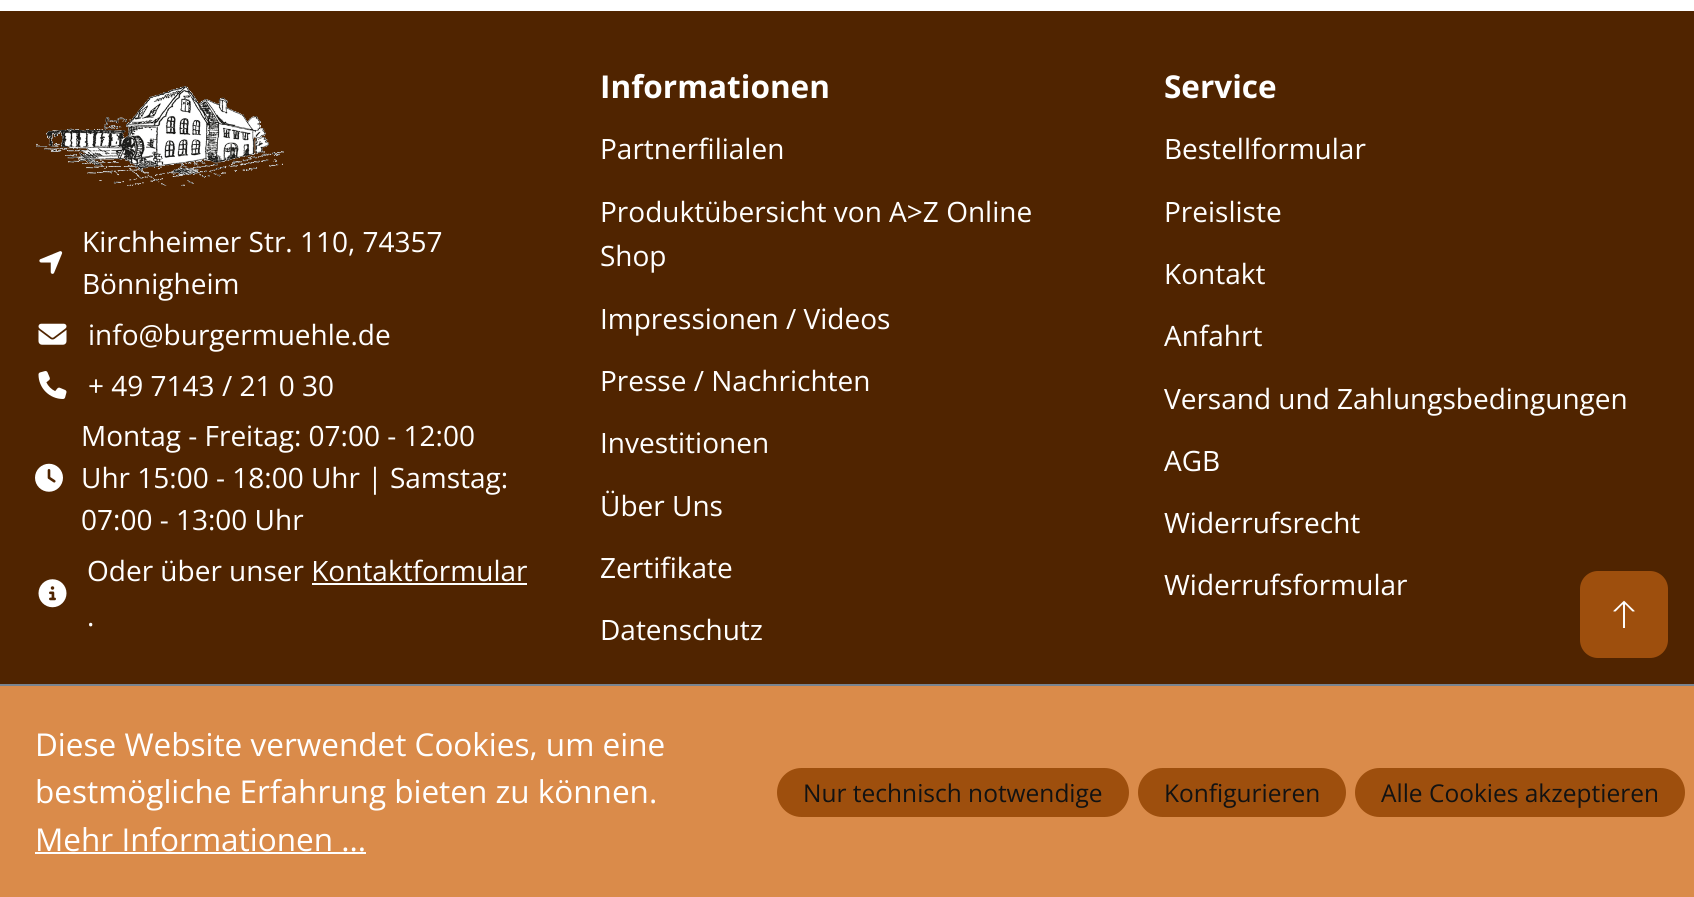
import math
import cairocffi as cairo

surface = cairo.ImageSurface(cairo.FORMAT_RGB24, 1694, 897)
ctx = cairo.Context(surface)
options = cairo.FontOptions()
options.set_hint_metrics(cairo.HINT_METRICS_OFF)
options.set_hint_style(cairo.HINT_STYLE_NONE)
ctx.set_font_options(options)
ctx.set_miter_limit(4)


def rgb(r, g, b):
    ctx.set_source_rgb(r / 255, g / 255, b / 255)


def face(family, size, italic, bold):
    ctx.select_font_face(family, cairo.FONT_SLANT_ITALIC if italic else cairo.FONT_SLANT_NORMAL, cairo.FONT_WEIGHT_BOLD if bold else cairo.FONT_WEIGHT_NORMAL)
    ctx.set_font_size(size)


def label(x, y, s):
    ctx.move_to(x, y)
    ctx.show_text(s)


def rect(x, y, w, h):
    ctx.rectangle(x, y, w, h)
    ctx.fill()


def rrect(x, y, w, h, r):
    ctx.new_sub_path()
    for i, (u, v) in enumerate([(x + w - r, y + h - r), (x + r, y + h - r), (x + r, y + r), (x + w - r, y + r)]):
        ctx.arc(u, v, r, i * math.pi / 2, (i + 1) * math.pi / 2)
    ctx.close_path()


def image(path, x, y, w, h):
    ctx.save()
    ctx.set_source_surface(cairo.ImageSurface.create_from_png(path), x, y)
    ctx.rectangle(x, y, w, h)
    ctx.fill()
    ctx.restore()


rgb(255, 255, 255)
ctx.paint()
rgb(80, 36, 0)
rect(0, 11, 1694, 673)
image('image0.png', 36, 86, 248, 100)
image('image1.png', 39, 251, 24, 23)
face('Open Sans', 28, 0, 0)
rgb(255, 255, 255)
label(82, 252, 'Kirchheimer Str. 110, 74357')
label(82, 294, 'Bönnigheim')
image('image2.png', 38, 323, 29, 22)
label(88, 345, 'info@burgermuehle.de')
image('image3.png', 38, 371, 29, 28)
label(88, 396, '+ 49 7143 / 21 0 30')
image('image4.png', 35, 463, 28, 29)
label(81, 446, 'Montag - Freitag: 07:00 - 12:00')
label(81, 488, 'Uhr 15:00 - 18:00 Uhr | Samstag:')
label(81, 530, '07:00 - 13:00 Uhr')
image('image5.png', 38, 579, 29, 29)
label(87, 581, 'Oder über unser Kontaktformular')
rect(312, 583, 215, 2)
label(87, 626, '.')
face('Open Sans', 31.5, 0, 1)
label(600, 98, 'Informationen')
face('Open Sans', 28, 0, 0)
label(600, 159, 'Partnerfilialen')
label(600, 222, 'Produktübersicht von A>Z Online')
label(600, 266, 'Shop')
label(600, 329, 'Impressionen / Videos')
label(600, 391, 'Presse / Nachrichten')
label(600, 453, 'Investitionen')
label(600, 516, 'Über Uns')
label(600, 578, 'Zertifikate')
label(600, 640, 'Datenschutz')
face('Open Sans', 31.5, 0, 1)
label(1164, 98, 'Service')
face('Open Sans', 28, 0, 0)
label(1164, 159, 'Bestellformular')
label(1164, 222, 'Preisliste')
label(1164, 284, 'Kontakt')
label(1164, 346, 'Anfahrt')
label(1164, 409, 'Versand und Zahlungsbedingungen')
label(1164, 471, 'AGB')
label(1164, 533, 'Widerrufsrecht')
label(1164, 595, 'Widerrufsformular')
rgb(158, 79, 13)
rrect(1580, 571, 88, 87, 18)
ctx.fill()
image('image6.png', 1613, 600, 22, 28)
rgb(218, 139, 74)
rect(0, 686, 1694, 211)
rgb(121, 132, 144)
rect(0, 684, 1694, 2)
face('Open Sans', 31.5, 0, 0)
rgb(255, 255, 255)
label(35, 756, 'Diese Website verwendet Cookies, um eine')
label(35, 803, 'bestmögliche Erfahrung bieten zu können.')
label(35, 851, 'Mehr Informationen ...')
rect(35, 852, 331, 2)
rgb(158, 79, 13)
rrect(778, 769, 350, 47, 23.5)
ctx.fill_preserve()
ctx.stroke()
face('Open Sans', 24.5, 0, 0)
rgb(18, 18, 18)
label(803, 802, 'Nur technisch notwendige')
rgb(158, 79, 13)
rrect(1139, 769, 206, 47, 23.5)
ctx.fill_preserve()
ctx.stroke()
rgb(18, 18, 18)
label(1164, 802, 'Konfigurieren')
rgb(158, 79, 13)
rrect(1356, 769, 328, 47, 23.5)
ctx.fill_preserve()
ctx.stroke()
rgb(18, 18, 18)
label(1381, 802, 'Alle Cookies akzeptieren')
surface.write_to_png('render.png')
